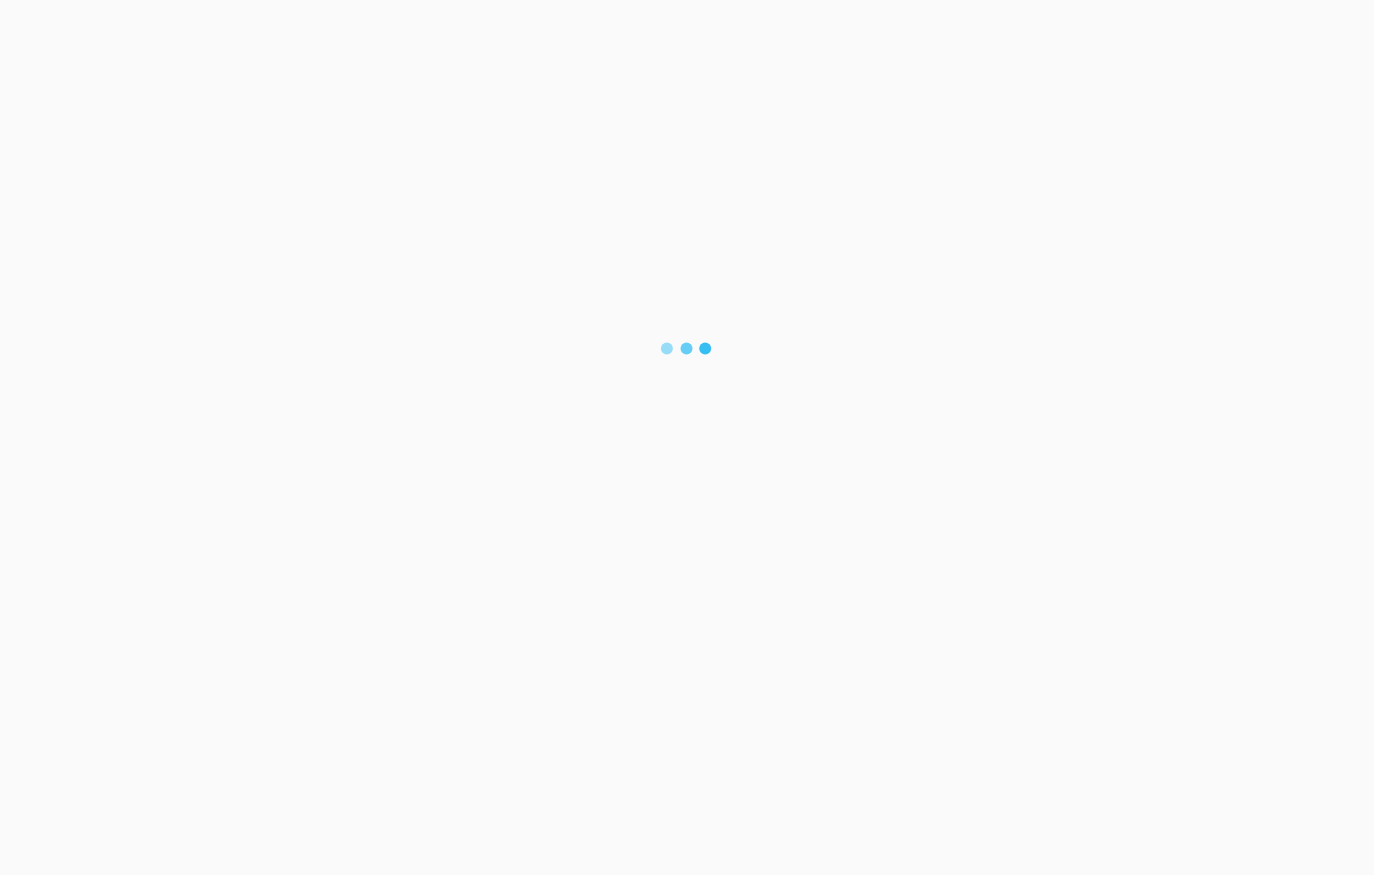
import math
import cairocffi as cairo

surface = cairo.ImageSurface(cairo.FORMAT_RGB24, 1374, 875)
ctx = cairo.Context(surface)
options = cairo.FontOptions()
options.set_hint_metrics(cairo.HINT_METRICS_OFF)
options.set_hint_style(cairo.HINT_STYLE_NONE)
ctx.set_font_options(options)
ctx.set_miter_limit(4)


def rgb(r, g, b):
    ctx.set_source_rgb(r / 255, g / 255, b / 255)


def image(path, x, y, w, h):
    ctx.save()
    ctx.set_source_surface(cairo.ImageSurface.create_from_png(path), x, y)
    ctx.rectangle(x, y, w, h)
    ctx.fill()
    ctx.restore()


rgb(250, 250, 251)
ctx.paint()
image('image0.png', 660, 342, 52, 13)
surface.write_to_png('render.png')
